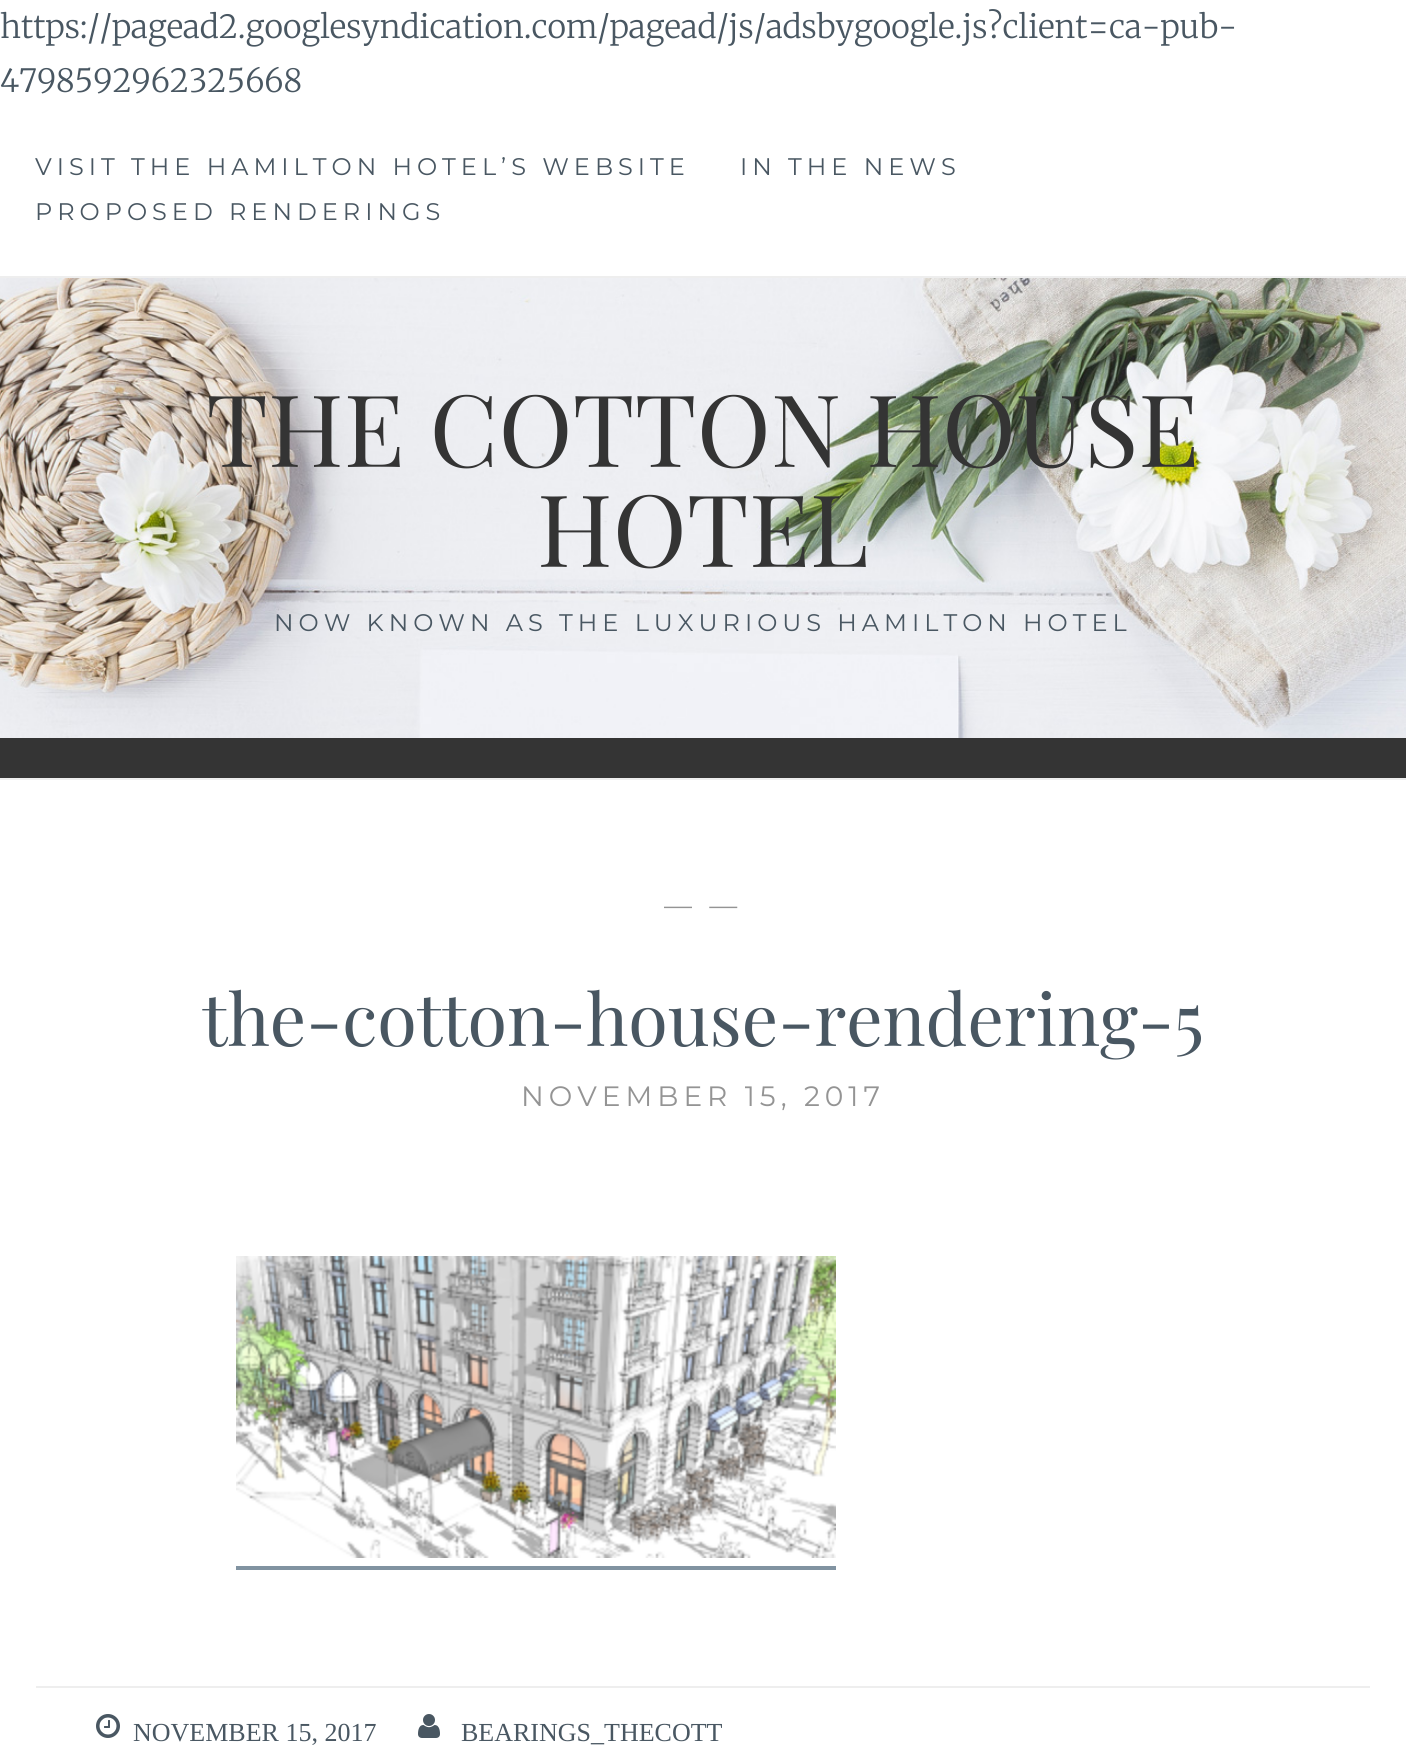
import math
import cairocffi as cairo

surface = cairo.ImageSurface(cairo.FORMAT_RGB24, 1406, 1756)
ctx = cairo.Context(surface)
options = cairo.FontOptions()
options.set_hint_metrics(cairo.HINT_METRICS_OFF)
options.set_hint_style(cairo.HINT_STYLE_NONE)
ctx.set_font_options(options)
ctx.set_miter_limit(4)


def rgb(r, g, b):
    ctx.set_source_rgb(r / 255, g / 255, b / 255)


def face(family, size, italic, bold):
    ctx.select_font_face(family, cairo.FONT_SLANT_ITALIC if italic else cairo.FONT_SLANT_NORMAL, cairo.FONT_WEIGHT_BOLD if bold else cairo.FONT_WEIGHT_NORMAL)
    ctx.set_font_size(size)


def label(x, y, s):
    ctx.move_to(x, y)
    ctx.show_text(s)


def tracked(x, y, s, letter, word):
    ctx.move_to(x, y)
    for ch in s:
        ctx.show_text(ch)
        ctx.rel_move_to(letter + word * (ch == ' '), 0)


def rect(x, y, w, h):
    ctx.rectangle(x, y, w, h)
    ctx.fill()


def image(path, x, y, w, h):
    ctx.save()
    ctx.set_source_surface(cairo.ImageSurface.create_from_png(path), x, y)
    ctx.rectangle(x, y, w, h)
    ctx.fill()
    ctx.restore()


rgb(255, 255, 255)
ctx.paint()
face('Merriweather Light', 32, 0, 0)
rgb(73, 87, 98)
label(0, 38, 'https://pagead2.googlesyndication.com/pagead/js/adsbygoogle.js?client=ca-pub-')
label(0, 92, '4798592962325668')
rgb(238, 238, 238)
rect(0, 276, 1406, 2)
face('Montserrat', 24, 0, 0)
rgb(73, 87, 98)
tracked(35, 175, 'VISIT THE HAMILTON HOTEL’S WEBSITE', 5, 0)
tracked(740, 175, 'IN THE NEWS', 5, 0)
tracked(35, 220, 'PROPOSED RENDERINGS', 5, 0)
rgb(52, 52, 52)
rect(0, 738, 1406, 40)
image('image0.png', 0, 278, 1406, 460)
face('Playfair Display', 100, 0, 0)
label(206, 467, 'THE COTTON HOUSE')
label(537, 567, 'HOTEL')
face('Montserrat', 24, 0, 0)
rgb(73, 87, 98)
tracked(274, 631, 'NOW KNOWN AS THE LUXURIOUS HAMILTON HOTEL', 5, 0)
rgb(238, 238, 238)
rect(0, 778, 1406, 2)
face('Montserrat', 28, 0, 0)
rgb(148, 148, 148)
tracked(664, 915, '— —', 5, 0)
face('Playfair Display', 72, 0, 0)
rgb(73, 87, 98)
label(202, 1046, 'the-cotton-house-rendering-5')
face('Montserrat', 28, 0, 0)
rgb(148, 148, 148)
tracked(521, 1106, 'NOVEMBER 15, 2017', 5, 0)
image('image1.png', 236, 1256, 600, 302)
rgb(129, 147, 161)
rect(236, 1566, 600, 4)
rgb(238, 238, 238)
rect(36, 1686, 1334, 2)
image('image2.png', 96, 1714, 24, 24)
face('Liberation Serif', 26, 0, 0)
rgb(73, 87, 98)
label(133, 1741, 'NOVEMBER 15, 2017')
image('image3.png', 418, 1714, 22, 24)
label(461, 1741, 'BEARINGS_THECOTT')
surface.write_to_png('render.png')
